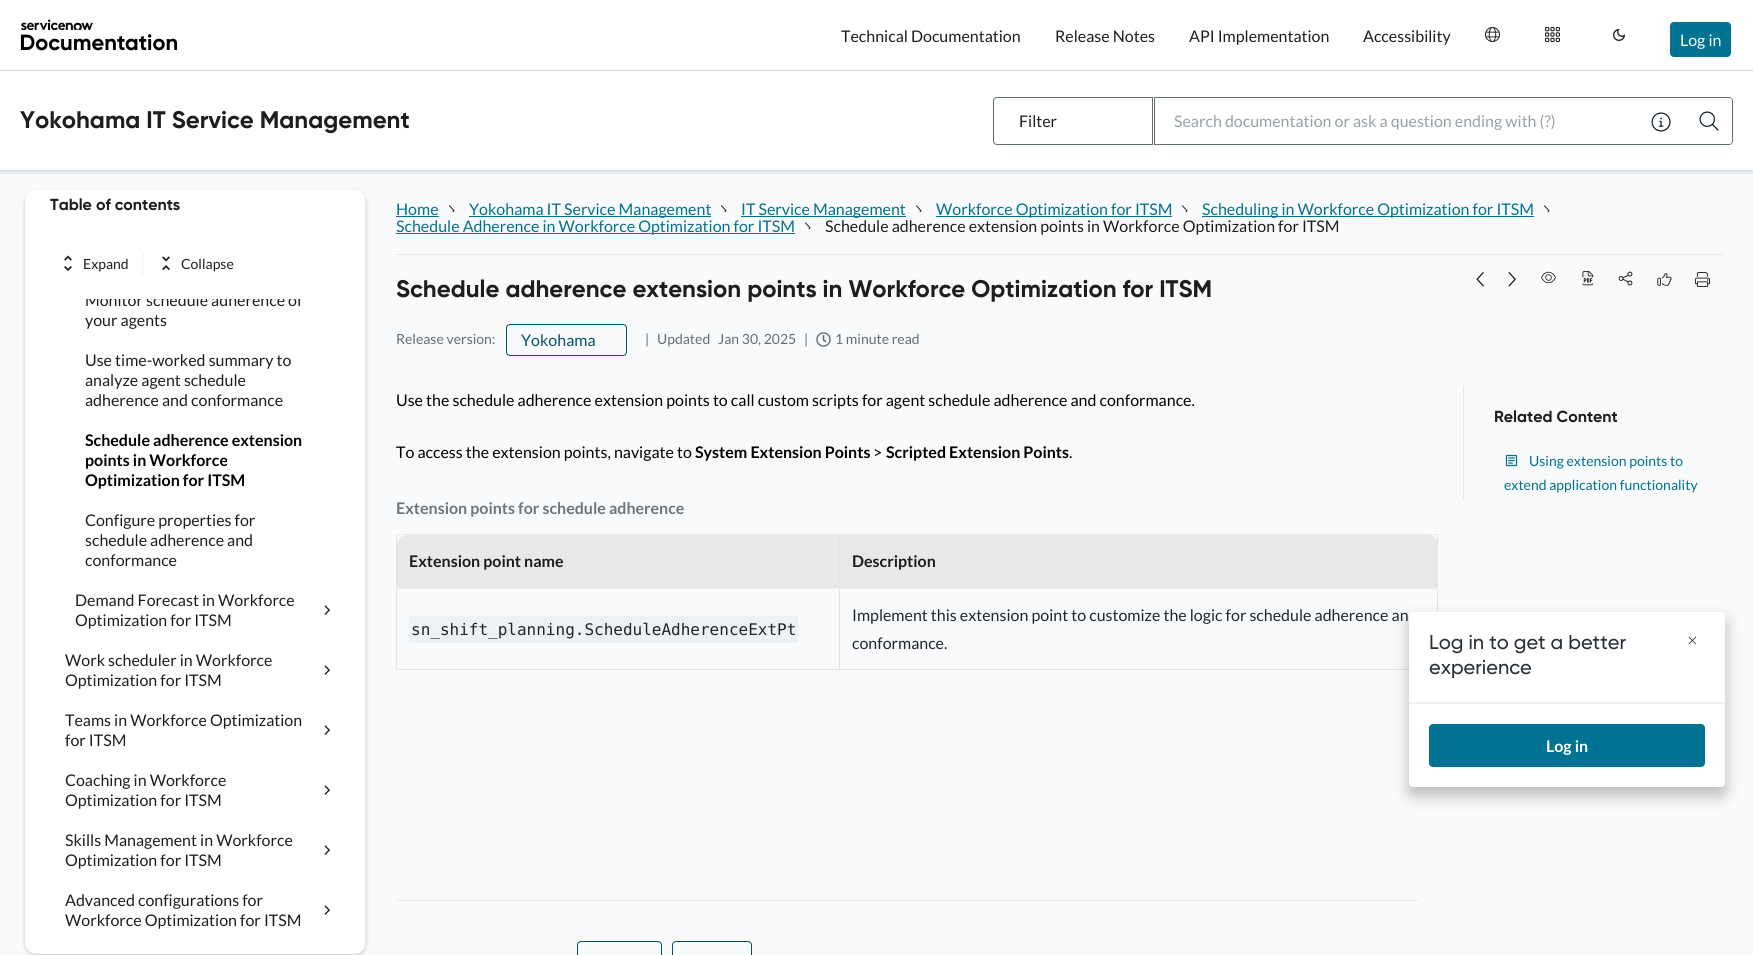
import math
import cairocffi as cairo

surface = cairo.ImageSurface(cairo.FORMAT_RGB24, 1753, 955)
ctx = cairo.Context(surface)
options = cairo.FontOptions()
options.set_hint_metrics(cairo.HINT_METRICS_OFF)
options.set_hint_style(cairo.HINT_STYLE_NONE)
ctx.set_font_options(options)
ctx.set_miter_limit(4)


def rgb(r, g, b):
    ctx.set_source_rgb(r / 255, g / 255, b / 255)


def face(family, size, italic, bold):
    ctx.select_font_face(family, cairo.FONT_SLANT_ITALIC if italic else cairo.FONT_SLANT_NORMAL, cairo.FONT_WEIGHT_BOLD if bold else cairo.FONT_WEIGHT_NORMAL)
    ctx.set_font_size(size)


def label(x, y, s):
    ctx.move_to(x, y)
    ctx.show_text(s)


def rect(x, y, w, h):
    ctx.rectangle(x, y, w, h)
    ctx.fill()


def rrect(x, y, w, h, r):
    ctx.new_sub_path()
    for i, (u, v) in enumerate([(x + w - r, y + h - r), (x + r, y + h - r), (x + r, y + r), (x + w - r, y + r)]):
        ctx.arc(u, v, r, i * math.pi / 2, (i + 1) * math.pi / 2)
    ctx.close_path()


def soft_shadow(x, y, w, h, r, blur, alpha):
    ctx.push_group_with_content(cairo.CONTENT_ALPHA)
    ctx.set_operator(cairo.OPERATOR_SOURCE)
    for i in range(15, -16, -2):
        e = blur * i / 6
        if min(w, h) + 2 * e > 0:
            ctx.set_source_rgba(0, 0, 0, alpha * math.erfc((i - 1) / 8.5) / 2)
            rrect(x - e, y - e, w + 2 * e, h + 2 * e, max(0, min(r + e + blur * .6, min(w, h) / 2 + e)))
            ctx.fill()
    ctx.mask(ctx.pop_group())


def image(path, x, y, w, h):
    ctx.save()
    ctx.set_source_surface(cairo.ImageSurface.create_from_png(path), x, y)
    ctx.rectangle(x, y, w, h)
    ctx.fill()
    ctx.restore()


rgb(248, 250, 252)
ctx.paint()
rgb(96, 110, 116)
soft_shadow(0, 72, 1753, 100, 0, 2, 0.25)
rgb(255, 255, 255)
rect(0, 0, 1753, 70)
image('image0.png', 20, 19, 158, 32)
face('Lato', 16, 0, 0)
rgb(29, 29, 29)
label(841, 42, 'Technical Documentation')
label(1055, 42, 'Release Notes')
label(1189, 42, 'API Implementation')
label(1363, 42, 'Accessibility')
image('image1.png', 1485, 27, 15, 15)
image('image2.png', 1545, 27, 15, 15)
image('image3.png', 1613, 29, 12, 12)
rgb(0, 115, 147)
rrect(1670, 22, 61, 35, 4)
ctx.fill()
rgb(255, 255, 255)
label(1680, 46, 'Log in')
rect(0, 71, 1753, 99)
rgb(207, 213, 215)
rect(0, 70, 1753, 1)
face('Gilroy', 24, 0, 1)
rgb(29, 29, 29)
label(20, 128, 'Yokohama IT Service Management')
ctx.new_path()
ctx.move_to(997, 97.5)
ctx.line_to(1152.5, 97.5)
ctx.line_to(1152.5, 144.5)
ctx.line_to(997, 144.5)
ctx.curve_to(995, 144.5, 993.5, 143, 993.5, 141)
ctx.line_to(993.5, 101)
ctx.curve_to(993.5, 99, 995, 97.5, 997, 97.5)
ctx.close_path()
rgb(96, 110, 116)
ctx.set_line_width(1)
ctx.stroke()
face('Lato', 16, 0, 0)
rgb(29, 29, 29)
label(1019, 127, 'Filter')
image('image4.png', 1122, 116, 2, 1)
rgb(96, 110, 116)
rect(1154, 97, 531, 1)
rect(1154, 144, 531, 1)
image('image5.png', 1651, 112, 20, 20)
ctx.set_fill_rule(cairo.FILL_RULE_EVEN_ODD)
ctx.new_path()
ctx.move_to(1685, 97)
ctx.line_to(1729, 97)
ctx.curve_to(1731, 97, 1733, 99, 1733, 101)
ctx.line_to(1733, 141)
ctx.curve_to(1733, 143, 1731, 145, 1729, 145)
ctx.line_to(1685, 145)
ctx.close_path()
ctx.move_to(1685, 98)
ctx.line_to(1729, 98)
ctx.curve_to(1731, 98, 1732, 99, 1732, 101)
ctx.line_to(1732, 141)
ctx.curve_to(1732, 143, 1731, 144, 1729, 144)
ctx.line_to(1685, 144)
ctx.close_path()
ctx.fill()
image('image6.png', 1699, 111, 20, 20)
rect(1154, 97, 1, 48)
rgb(150, 161, 165)
label(1174, 127, 'Search documentation or ask a question ending with (?)')
rgb(0, 0, 0)
soft_shadow(25, 192, 341, 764, 12, 2, 0.2)
rgb(255, 255, 255)
rrect(25, 190, 341, 764, 12)
ctx.fill()
rgb(232, 232, 232)
rect(365, 196, 1, 752)
face('Gilroy', 16, 0, 1)
rgb(29, 29, 29)
label(50, 210, 'Table of contents')
image('image7.png', 64, 255, 8, 16)
face('Lato', 14, 0, 0)
label(83, 269, 'Expand')
rgb(239, 240, 240)
rect(142, 251, 1, 25)
image('image8.png', 162, 256, 8, 15)
rgb(29, 29, 29)
label(181, 269, 'Collapse')
ctx.save()
ctx.set_fill_rule(cairo.FILL_RULE_WINDING)
ctx.rectangle(35, 299, 320, 654)
ctx.clip()
face('Lato', 16, 0, 0)
label(85, 306, 'Monitor schedule adherence of')
ctx.restore()
face('Lato', 16, 0, 0)
label(85, 326, 'your agents')
label(85, 366, 'Use time-worked summary to')
label(85, 386, 'analyze agent schedule')
label(85, 406, 'adherence and conformance')
face('Lato', 16, 0, 1)
rgb(0, 0, 0)
label(85, 446, 'Schedule adherence extension')
label(85, 466, 'points in Workforce')
label(85, 486, 'Optimization for ITSM')
face('Lato', 16, 0, 0)
rgb(29, 29, 29)
label(85, 526, 'Configure properties for')
label(85, 546, 'schedule adherence and')
label(85, 566, 'conformance')
label(75, 606, 'Demand Forecast in Workforce')
label(75, 626, 'Optimization for ITSM')
image('image9.png', 324, 605, 6, 10)
label(65, 666, 'Work scheduler in Workforce')
label(65, 686, 'Optimization for ITSM')
image('image9.png', 324, 665, 6, 10)
label(65, 726, 'Teams in Workforce Optimization')
label(65, 746, 'for ITSM')
image('image9.png', 324, 725, 6, 10)
label(65, 786, 'Coaching in Workforce')
label(65, 806, 'Optimization for ITSM')
image('image9.png', 324, 785, 6, 10)
label(65, 846, 'Skills Management in Workforce')
label(65, 866, 'Optimization for ITSM')
image('image9.png', 324, 845, 6, 10)
label(65, 906, 'Advanced configurations for')
label(65, 926, 'Workforce Optimization for ITSM')
image('image9.png', 324, 905, 6, 10)
rgb(232, 232, 232)
rect(396, 254, 1327, 1)
rgb(0, 113, 143)
label(396, 215, 'Home')
rect(396, 216, 43, 1)
image('image10.png', 449, 205, 6, 7)
rect(469, 216, 242, 1)
label(469, 215, 'Yokohama IT Service Management')
image('image10.png', 721, 205, 6, 7)
rect(741, 216, 165, 1)
label(741, 215, 'IT Service Management')
image('image10.png', 916, 205, 6, 7)
rect(936, 216, 236, 1)
label(936, 215, 'Workforce Optimization for ITSM')
image('image10.png', 1182, 205, 6, 7)
rect(1202, 216, 332, 1)
label(1202, 215, 'Scheduling in Workforce Optimization for ITSM')
image('image10.png', 1544, 205, 6, 7)
rect(396, 233, 399, 1)
label(396, 232, 'Schedule Adherence in Workforce Optimization for ITSM')
image('image10.png', 805, 222, 6, 7)
rgb(29, 29, 29)
label(825, 232, 'Schedule adherence extension points in Workforce Optimization for ITSM')
face('Gilroy', 24, 0, 1)
label(396, 297, 'Schedule adherence extension points in Workforce Optimization for ITSM')
image('image11.png', 1476, 272, 8, 15)
image('image12.png', 1508, 272, 8, 15)
image('image13.png', 1541, 271, 15, 13)
image('image14.png', 1582, 271, 12, 15)
image('image15.png', 1618, 271, 15, 15)
image('image16.png', 1657, 273, 15, 13)
image('image17.png', 1695, 272, 15, 15)
face('Lato', 14, 0, 0)
rgb(96, 110, 116)
label(396, 344, 'Release version:')
rrect(506.5, 324.5, 120, 31, 3.5)
rgb(2, 80, 107)
ctx.stroke()
face('Lato', 16, 0, 0)
label(521, 346, 'Yokohama')
image('image18.png', 613, 337, 2, 1)
face('Lato', 14, 0, 0)
rgb(96, 110, 116)
label(645, 344, '|')
label(657, 344, 'Updated')
label(718, 344, 'Jan 30, 2025')
label(804, 344, '|')
image('image19.png', 816, 332, 15, 15)
label(835, 344, '1 minute read')
face('Lato', 16, 0, 0)
rgb(0, 0, 0)
label(396, 406, 'Use the schedule adherence extension points to call custom scripts for agent schedule adherence and conformance.')
label(396, 458, 'To access the extension points, navigate to')
face('Lato', 16, 0, 1)
label(695, 458, 'System Extension Points')
face('Lato', 16, 0, 0)
label(873, 458, '>')
face('Lato', 16, 0, 1)
label(886, 458, 'Scripted Extension Points')
face('Lato', 16, 0, 0)
label(1069, 458, '.')
face('Lato', 16, 0, 1)
rgb(108, 117, 125)
label(396, 514, 'Extension points for schedule adherence')
rgb(232, 232, 232)
ctx.new_path()
ctx.move_to(407, 535)
ctx.line_to(1428, 535)
ctx.curve_to(1433.5, 535, 1438, 539.5, 1438, 545)
ctx.line_to(1438, 588)
ctx.line_to(397, 588)
ctx.line_to(397, 545)
ctx.curve_to(397, 539.5, 401.5, 535, 407, 535)
ctx.close_path()
ctx.fill()
rgb(233, 236, 239)
rect(396, 534, 1042, 1)
rgb(227, 227, 227)
rect(839, 669, 570, 1)
rect(839, 588, 1, 82)
rect(839, 534, 1, 55)
rect(396, 669, 444, 1)
rect(396, 588, 1, 82)
rect(396, 534, 1, 55)
rgb(29, 29, 29)
label(409, 567, 'Extension point name')
rgb(227, 227, 227)
rect(1437, 588, 1, 24)
rect(1437, 534, 1, 55)
rgb(233, 236, 239)
rect(396, 587, 1042, 2)
rgb(29, 29, 29)
label(852, 567, 'Description')
rgb(238, 241, 244)
rect(409, 616, 389, 27)
face('DejaVu Sans Mono', 16, 0, 0)
rgb(33, 37, 41)
label(411, 635, 'sn_shift_planning.ScheduleAdherenceExtPt')
face('Lato', 16, 0, 0)
label(852, 621, 'Implement this extension point to customize the logic for schedule adherence an')
label(852, 649, 'conformance.')
rgb(232, 232, 232)
rect(1463, 386, 1, 115)
face('Gilroy', 16, 0, 1)
rgb(29, 29, 29)
label(1494, 422, 'Related Content')
image('image20.png', 1505, 454, 13, 13)
face('Lato', 14, 0, 0)
rgb(0, 113, 143)
label(1529, 466, 'Using extension points to')
label(1504, 490, 'extend application functionality')
rgb(232, 232, 232)
rect(396, 900, 1022, 1)
rrect(577.5, 941.5, 84, 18, 3.5)
rgb(2, 80, 107)
ctx.stroke()
rrect(672.5, 941.5, 79, 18, 3.5)
ctx.stroke()
rgb(0, 0, 0)
soft_shadow(1409, 620, 316, 175, 4, 8, 0.27)
rgb(255, 255, 255)
rrect(1409, 612, 316, 175, 4)
ctx.fill()
ctx.new_path()
ctx.move_to(1413, 612)
ctx.line_to(1721, 612)
ctx.curve_to(1723, 612, 1725, 614, 1725, 616)
ctx.line_to(1725, 703)
ctx.line_to(1409, 703)
ctx.line_to(1409, 616)
ctx.curve_to(1409, 614, 1411, 612, 1413, 612)
ctx.close_path()
ctx.fill()
rgb(241, 241, 241)
rect(1409, 702, 316, 2)
face('Gilroy Medium', 20, 0, 0)
rgb(40, 47, 54)
label(1429, 649, 'Log in to get a better')
label(1429, 674, 'experience')
image('image21.png', 1688, 636, 8, 9)
rgb(0, 115, 147)
rrect(1429, 724, 276, 43, 4)
ctx.fill()
face('Lato', 16, 0, 1)
rgb(255, 255, 255)
label(1546, 752, 'Log in')
surface.write_to_png('render.png')
